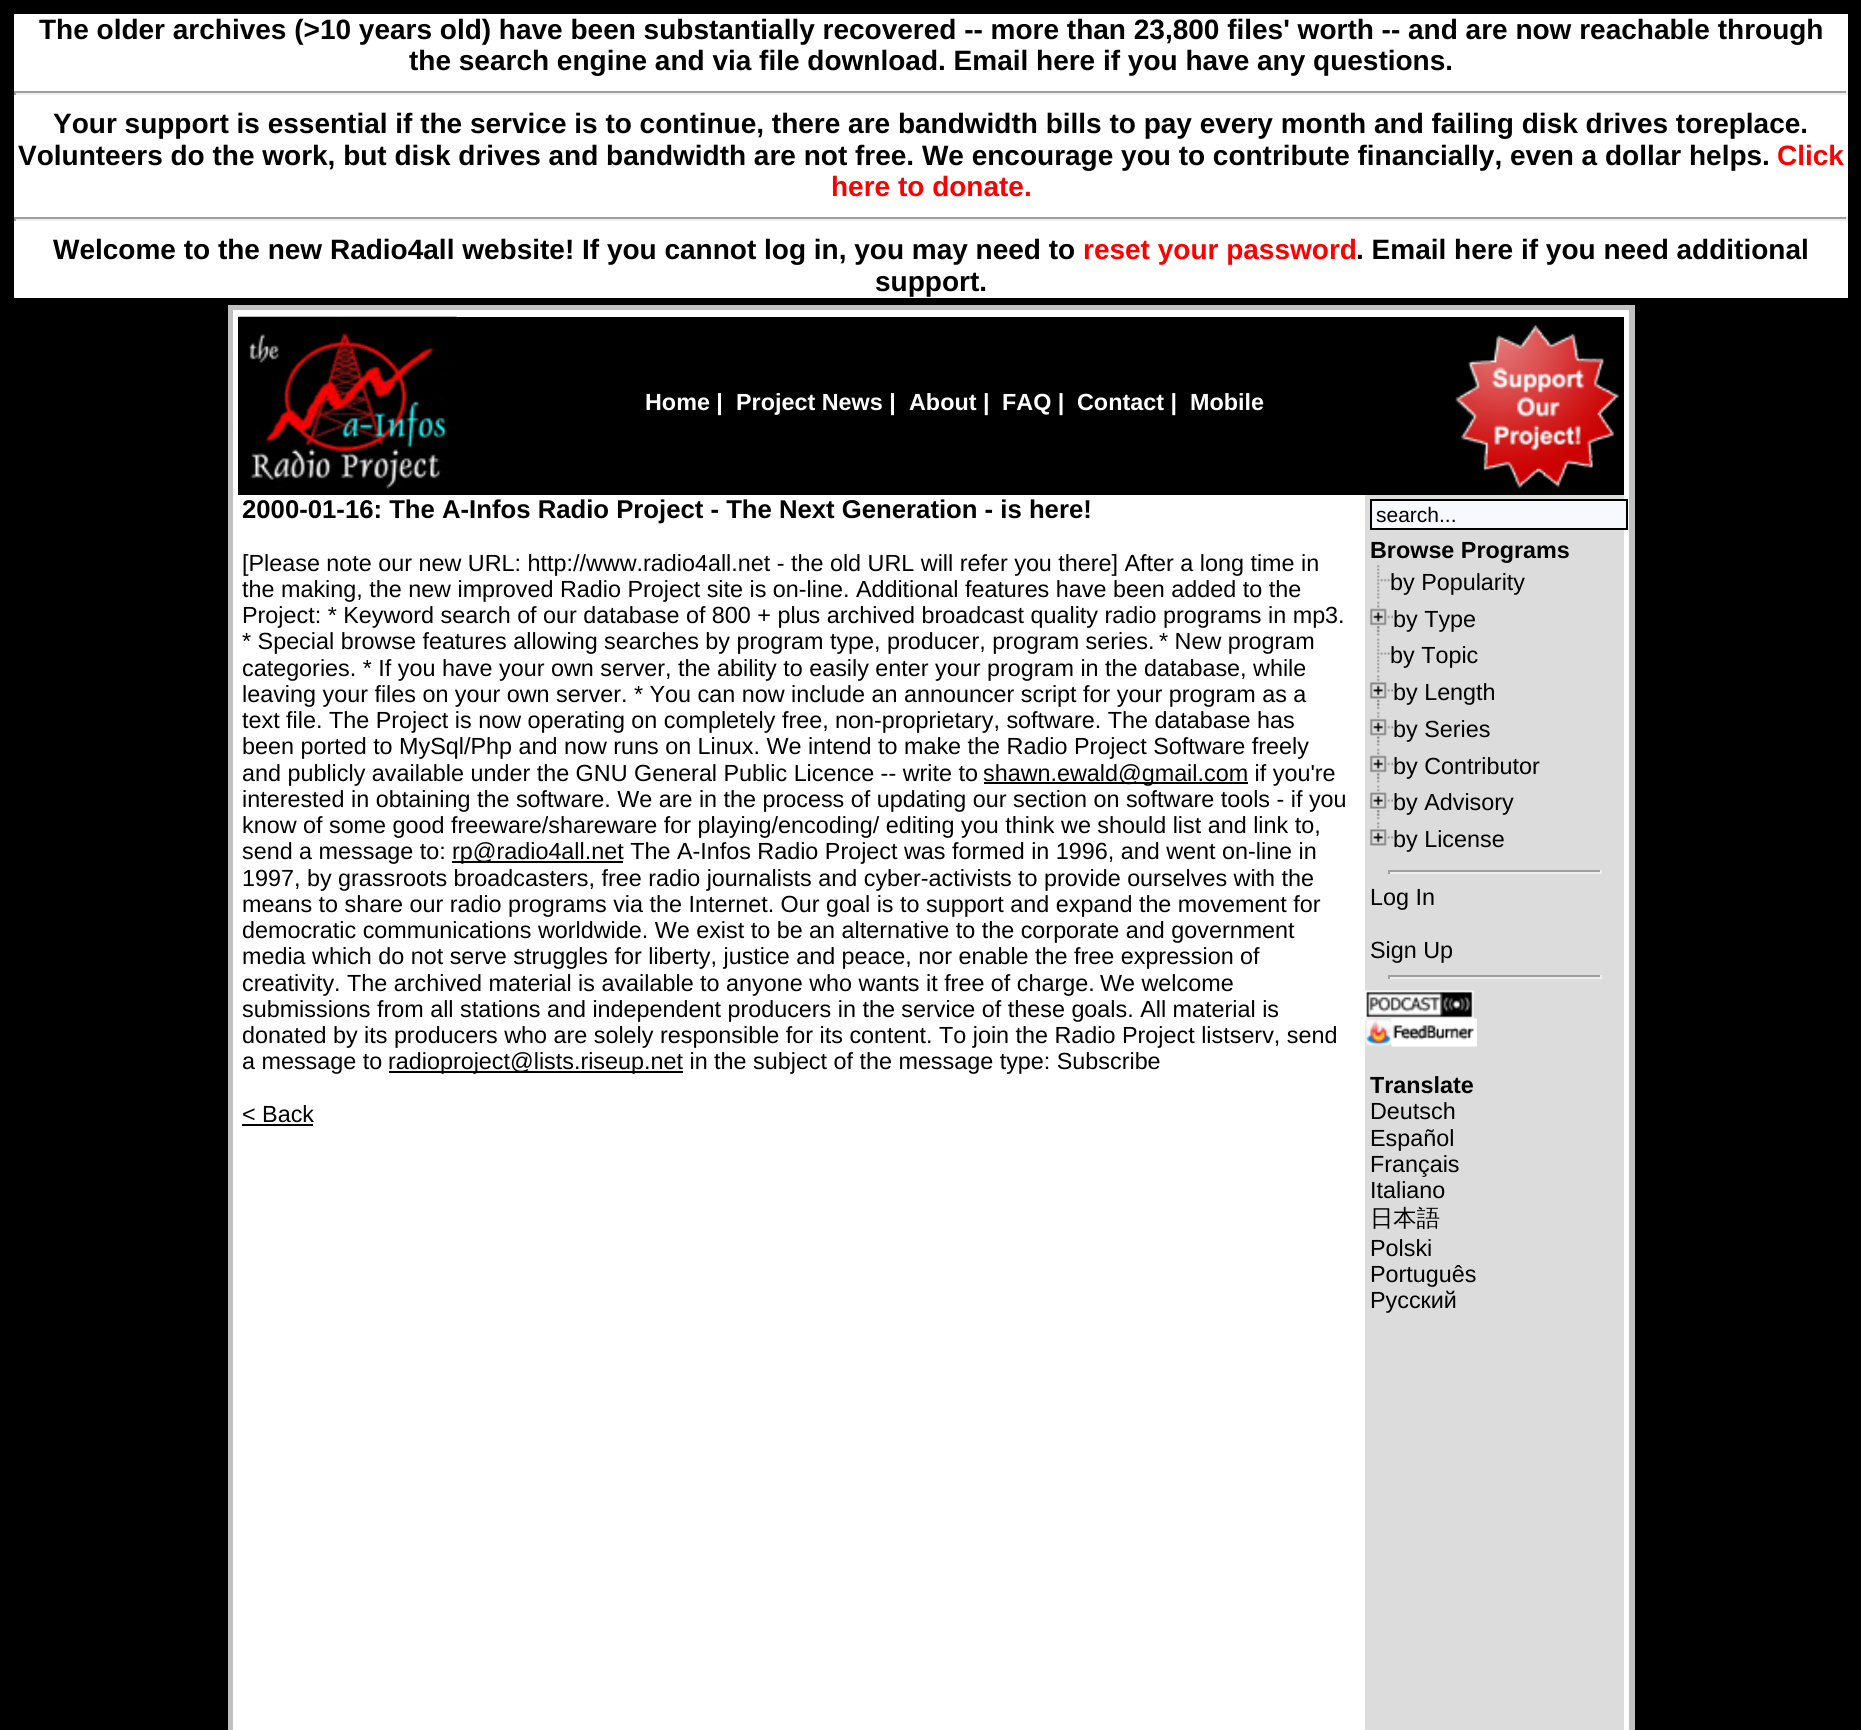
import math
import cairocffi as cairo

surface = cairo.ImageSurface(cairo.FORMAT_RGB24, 1861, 1730)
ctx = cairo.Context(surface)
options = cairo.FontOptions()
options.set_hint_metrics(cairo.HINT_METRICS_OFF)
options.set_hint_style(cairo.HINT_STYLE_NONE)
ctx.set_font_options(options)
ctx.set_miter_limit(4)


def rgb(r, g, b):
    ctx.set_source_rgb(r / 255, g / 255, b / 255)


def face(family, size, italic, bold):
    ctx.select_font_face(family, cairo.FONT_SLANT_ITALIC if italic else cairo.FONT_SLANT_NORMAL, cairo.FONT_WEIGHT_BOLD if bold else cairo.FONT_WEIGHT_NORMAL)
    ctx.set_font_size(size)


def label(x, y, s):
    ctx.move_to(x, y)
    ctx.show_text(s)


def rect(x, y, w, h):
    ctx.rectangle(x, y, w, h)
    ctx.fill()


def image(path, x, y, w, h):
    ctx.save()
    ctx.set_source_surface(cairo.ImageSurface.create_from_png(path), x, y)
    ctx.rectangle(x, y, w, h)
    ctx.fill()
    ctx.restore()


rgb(0, 0, 0)
ctx.paint()
rgb(255, 255, 255)
rect(14, 14, 1834, 284)
face('Liberation Sans', 28, 0, 1)
rgb(0, 0, 0)
label(39, 39, 'The older archives (>10 years old) have been substantially recovered -- more than 23,800 files\' worth -- and are now reachable through')
label(409, 70, 'the search engine and via file download. Email here if you have any questions.')
rgb(159, 159, 159)
rect(14, 91, 1834, 2)
rgb(238, 238, 238)
rect(1846, 91, 2, 4)
rect(14, 93, 1834, 2)
rgb(159, 159, 159)
rect(14, 91, 2, 4)
rgb(0, 0, 0)
label(53, 133, 'Your support is essential if the service is to continue, there are bandwidth bills to pay every month and failing disk drives toreplace.')
label(18, 165, 'Volunteers do the work, but disk drives and bandwidth are not free. We encourage you to contribute financially, even a dollar helps.')
rgb(255, 0, 0)
label(1777, 165, 'Click')
label(831, 196, 'here to donate.')
rgb(159, 159, 159)
rect(14, 217, 1834, 2)
rgb(238, 238, 238)
rect(1846, 217, 2, 4)
rect(14, 219, 1834, 2)
rgb(159, 159, 159)
rect(14, 217, 2, 4)
rgb(0, 0, 0)
label(53, 259, 'Welcome to the new Radio4all website! If you cannot log in, you may need to')
rgb(255, 0, 0)
label(1083, 259, 'reset your password')
rgb(0, 0, 0)
label(1356, 259, '. Email here if you need additional')
label(875, 291, 'support.')
rgb(192, 192, 192)
rect(228, 305, 1407, 1425)
rgb(255, 255, 255)
rect(233, 310, 1396, 1420)
rgb(0, 0, 0)
rect(238, 317, 1386, 178)
image('image0.png', 238, 316, 219, 174)
face('Liberation Sans', 23.35, 0, 1)
rgb(255, 255, 255)
label(645, 410, 'Home |')
label(736, 410, 'Project News |')
label(909, 410, 'About |')
label(1002, 410, 'FAQ |')
label(1077, 410, 'Contact |')
label(1190, 410, 'Mobile')
image('image1.png', 1455, 325, 165, 164)
face('Liberation Sans', 25.7, 0, 1)
rgb(0, 0, 0)
label(242, 518, '2000-01-16: The A-Infos Radio Project - The Next Generation - is here!')
face('Liberation Sans', 23.35, 0, 0)
label(242, 571, '[Please note our new URL: http://www.radio4all.net - the old URL will refer you there] After a long time in')
label(242, 597, 'the making, the new improved Radio Project site is on-line. Additional features have been added to the')
label(242, 623, 'Project: * Keyword search of our database of 800 + plus archived broadcast quality radio programs in mp3.')
label(242, 649, '* Special browse features allowing searches by program type, producer, program series.')
label(1159, 649, '* New program')
label(242, 676, 'categories. * If you have your own server, the ability to easily enter your program in the database, while')
label(242, 702, 'leaving your files on your own server. * You can now include an announcer script for your program as a')
label(242, 728, 'text file. The Project is now operating on completely free, non-proprietary, software. The database has')
label(242, 754, 'been ported to MySql/Php and now runs on Linux. We intend to make the Radio Project Software freely')
label(242, 781, 'and publicly available under the GNU General Public Licence -- write to')
rect(984, 782, 264, 2)
label(983, 781, 'shawn.ewald@gmail.com if you\'re')
label(242, 807, 'interested in obtaining the software. We are in the process of updating our section on software tools - if you')
label(242, 833, 'know of some good freeware/shareware for playing/encoding/ editing you think we should list and link to,')
label(242, 859, 'send a message to:')
rect(452, 861, 171, 2)
label(452, 859, 'rp@radio4all.net The A-Infos Radio Project was formed in 1996, and went on-line in')
label(242, 886, '1997, by grassroots broadcasters, free radio journalists and cyber-activists to provide ourselves with the')
label(242, 912, 'means to share our radio programs via the Internet. Our goal is to support and expand the movement for')
label(242, 938, 'democratic communications worldwide. We exist to be an alternative to the corporate and government')
label(242, 964, 'media which do not serve struggles for liberty, justice and peace, nor enable the free expression of')
label(242, 991, 'creativity. The archived material is available to anyone who wants it free of charge.')
label(1100, 991, 'We welcome')
label(242, 1017, 'submissions from all stations and independent producers in the service of these goals. All material is')
label(242, 1043, 'donated by its producers who are solely responsible for its content. To join the Radio Project listserv, send')
label(242, 1069, 'a message to')
rect(389, 1071, 294, 2)
label(388, 1069, 'radioproject@lists.riseup.net in the subject of the message type: Subscribe')
label(242, 1122, '< Back')
rect(242, 1124, 71, 2)
rgb(220, 220, 220)
rect(1365, 495, 259, 1235)
rgb(248, 248, 255)
ctx.rectangle(1371, 500, 256, 29)
ctx.fill_preserve()
rgb(0, 0, 0)
ctx.stroke()
face('Liberation Sans', 21, 0, 0)
label(1376, 522, 'search...')
face('Liberation Sans', 23.35, 0, 1)
label(1370, 558, 'Browse Programs')
image('image2.png', 1376, 564, 17, 35)
face('Liberation Sans', 23.35, 0, 0)
label(1390, 590, 'by Popularity')
image('image3.png', 1376, 601, 4, 35)
image('image4.png', 1369, 608, 24, 25)
label(1393, 627, 'by Type')
image('image5.png', 1376, 638, 17, 35)
label(1390, 663, 'by Topic')
image('image6.png', 1376, 675, 4, 35)
image('image7.png', 1369, 682, 24, 24)
label(1393, 700, 'by Length')
image('image8.png', 1376, 711, 4, 35)
image('image9.png', 1369, 718, 24, 25)
label(1393, 737, 'by Series')
image('image3.png', 1376, 748, 4, 35)
image('image4.png', 1369, 755, 24, 25)
label(1393, 774, 'by Contributor')
image('image10.png', 1376, 785, 4, 35)
image('image11.png', 1369, 792, 24, 24)
label(1393, 810, 'by Advisory')
image('image12.png', 1369, 822, 25, 24)
label(1393, 847, 'by License')
rgb(159, 159, 159)
rect(1388, 870, 213, 2)
rgb(238, 238, 238)
rect(1600, 870, 2, 4)
rect(1388, 872, 213, 2)
rgb(159, 159, 159)
rect(1388, 870, 2, 4)
rgb(0, 0, 0)
label(1370, 905, 'Log In')
label(1370, 958, 'Sign Up')
rgb(159, 159, 159)
rect(1388, 975, 213, 2)
rgb(238, 238, 238)
rect(1600, 975, 2, 4)
rect(1388, 977, 213, 2)
rgb(159, 159, 159)
rect(1388, 975, 2, 4)
image('image13.png', 1365, 990, 109, 29)
image('image14.png', 1365, 1018, 112, 29)
face('Liberation Sans', 23.35, 0, 1)
rgb(0, 0, 0)
label(1370, 1093, 'Translate')
face('Liberation Sans', 23.35, 0, 0)
label(1370, 1119, 'Deutsch')
label(1370, 1146, 'Español')
label(1370, 1172, 'Français')
label(1370, 1198, 'Italiano')
face('WenQuanYi Zen Hei Medium', 23.35, 0, 0)
label(1370, 1226, '日本語')
face('Liberation Sans', 23.35, 0, 0)
label(1370, 1256, 'Polski')
label(1370, 1282, 'Português')
label(1370, 1308, 'Русский')
surface.write_to_png('render.png')
